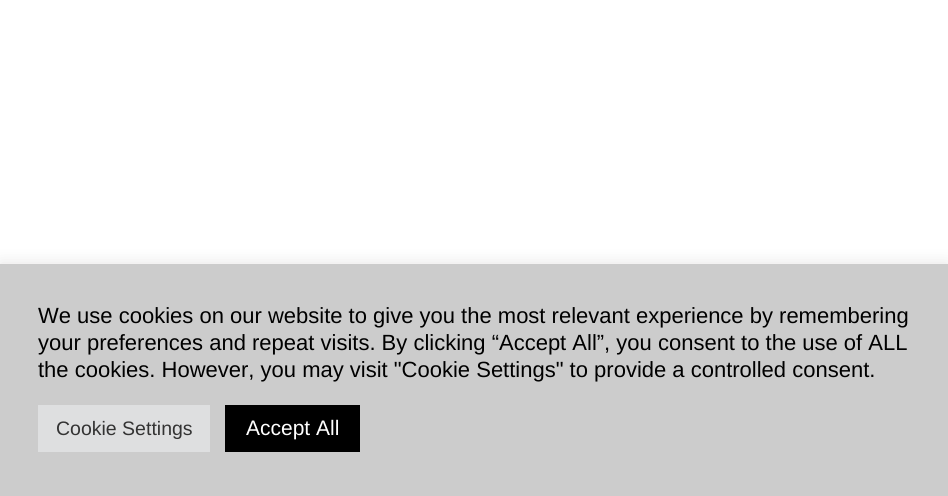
import math
import cairocffi as cairo

surface = cairo.ImageSurface(cairo.FORMAT_RGB24, 948, 496)
ctx = cairo.Context(surface)
options = cairo.FontOptions()
options.set_hint_metrics(cairo.HINT_METRICS_OFF)
options.set_hint_style(cairo.HINT_STYLE_NONE)
ctx.set_font_options(options)
ctx.set_miter_limit(4)


def rgb(r, g, b):
    ctx.set_source_rgb(r / 255, g / 255, b / 255)


def face(family, size, italic, bold):
    ctx.select_font_face(family, cairo.FONT_SLANT_ITALIC if italic else cairo.FONT_SLANT_NORMAL, cairo.FONT_WEIGHT_BOLD if bold else cairo.FONT_WEIGHT_NORMAL)
    ctx.set_font_size(size)


def label(x, y, s):
    ctx.move_to(x, y)
    ctx.show_text(s)


def rect(x, y, w, h):
    ctx.rectangle(x, y, w, h)
    ctx.fill()


def rrect(x, y, w, h, r):
    ctx.new_sub_path()
    for i, (u, v) in enumerate([(x + w - r, y + h - r), (x + r, y + h - r), (x + r, y + r), (x + w - r, y + r)]):
        ctx.arc(u, v, r, i * math.pi / 2, (i + 1) * math.pi / 2)
    ctx.close_path()


def soft_shadow(x, y, w, h, r, blur, alpha):
    ctx.push_group_with_content(cairo.CONTENT_ALPHA)
    ctx.set_operator(cairo.OPERATOR_SOURCE)
    for i in range(15, -16, -2):
        e = blur * i / 6
        if min(w, h) + 2 * e > 0:
            ctx.set_source_rgba(0, 0, 0, alpha * math.erfc((i - 1) / 8.5) / 2)
            rrect(x - e, y - e, w + 2 * e, h + 2 * e, max(0, min(r + e + blur * .6, min(w, h) / 2 + e)))
            ctx.fill()
    ctx.mask(ctx.pop_group())


rgb(255, 255, 255)
ctx.paint()
rgb(172, 171, 171)
soft_shadow(0, 263, 948, 232, 0, 7.5, 0.3)
rgb(204, 204, 204)
rect(0, 264, 948, 232)
face('Liberation Sans', 22, 0, 0)
rgb(0, 0, 0)
label(38, 323, 'We use cookies on our website to give you the most relevant experience by remembering')
label(38, 350, 'your preferences and repeat visits. By clicking “Accept All”, you consent to the use of ALL')
label(38, 377, 'the cookies. However, you may visit "Cookie Settings" to provide a controlled consent.')
rgb(222, 223, 224)
rect(38, 405, 172, 47)
face('Liberation Sans', 19.5, 0, 0)
rgb(51, 51, 51)
label(56, 435, 'Cookie Settings')
rgb(0, 0, 0)
rect(225, 405, 135, 47)
face('Liberation Sans', 21, 0, 0)
rgb(255, 255, 255)
label(246, 435, 'Accept All')
surface.write_to_png('render.png')
